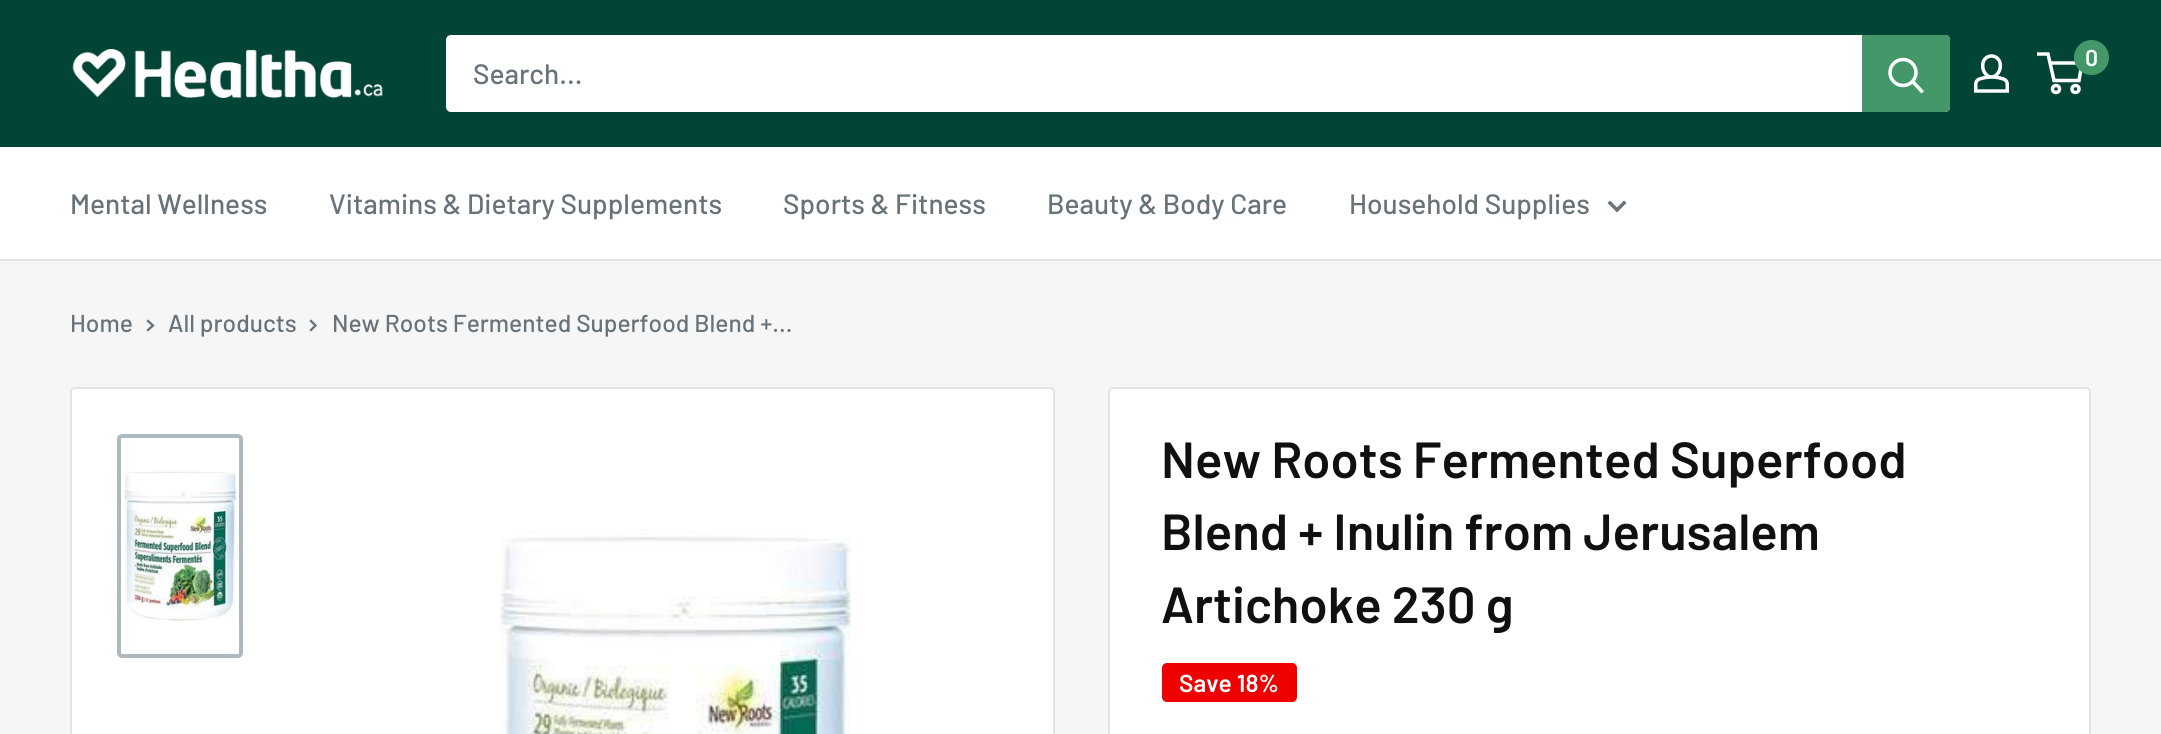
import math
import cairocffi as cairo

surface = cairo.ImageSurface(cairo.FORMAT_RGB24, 2161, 734)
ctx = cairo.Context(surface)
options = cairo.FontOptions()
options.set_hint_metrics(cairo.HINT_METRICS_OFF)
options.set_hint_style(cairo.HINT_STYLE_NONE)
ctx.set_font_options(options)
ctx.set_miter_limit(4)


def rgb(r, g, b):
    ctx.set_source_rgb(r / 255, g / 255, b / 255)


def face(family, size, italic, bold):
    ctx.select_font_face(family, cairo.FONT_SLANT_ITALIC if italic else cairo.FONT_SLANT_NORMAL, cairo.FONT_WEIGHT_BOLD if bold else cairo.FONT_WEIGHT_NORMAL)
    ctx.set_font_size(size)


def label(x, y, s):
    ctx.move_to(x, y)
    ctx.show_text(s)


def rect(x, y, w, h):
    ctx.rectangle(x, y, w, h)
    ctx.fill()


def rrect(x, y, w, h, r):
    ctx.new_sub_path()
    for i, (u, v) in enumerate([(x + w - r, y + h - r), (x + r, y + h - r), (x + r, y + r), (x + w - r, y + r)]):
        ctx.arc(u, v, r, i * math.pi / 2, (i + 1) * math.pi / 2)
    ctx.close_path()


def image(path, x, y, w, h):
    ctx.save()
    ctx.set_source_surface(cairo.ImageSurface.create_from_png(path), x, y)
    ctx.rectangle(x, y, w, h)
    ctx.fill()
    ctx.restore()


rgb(246, 246, 247)
ctx.paint()
rgb(2, 68, 53)
rect(0, 0, 2161, 147)
image('image0.png', 72, 49, 311, 49)
image('image1.png', 1974, 54, 35, 39)
ctx.arc(2056, 89, 3.5, 0, 2 * math.pi)
rgb(255, 255, 255)
ctx.set_line_width(3.5)
ctx.stroke()
ctx.arc(2075.5, 89, 3.5, 0, 2 * math.pi)
ctx.stroke()
ctx.new_path()
ctx.move_to(2050, 63)
ctx.line_to(2082, 63)
ctx.line_to(2079, 80.5)
ctx.line_to(2054, 80.5)
ctx.line_to(2048, 54)
ctx.line_to(2037, 54)
ctx.stroke()
rgb(67, 151, 104)
ctx.arc(2091.5, 57.5, 17.5, 0, 2 * math.pi)
ctx.fill()
face('Barlow SemiBold', 23, 0, 0)
rgb(255, 255, 255)
label(2085, 66, '0')
rrect(446, 35, 1504, 77, 5)
ctx.fill()
face('Barlow Medium', 28, 0, 0)
rgb(103, 114, 121)
label(473, 84, 'Search...')
rgb(67, 151, 104)
ctx.new_path()
ctx.move_to(1862, 35)
ctx.line_to(1945, 35)
ctx.curve_to(1948, 35, 1950, 37, 1950, 40)
ctx.line_to(1950, 107)
ctx.curve_to(1950, 110, 1948, 112, 1945, 112)
ctx.line_to(1862, 112)
ctx.close_path()
ctx.fill()
ctx.new_path()
ctx.move_to(1921.5, 91)
ctx.line_to(1913, 82)
rgb(255, 255, 255)
ctx.set_line_cap(cairo.LINE_CAP_SQUARE)
ctx.stroke()
ctx.arc(1903, 72.5, 13, 0, 2 * math.pi)
ctx.set_line_cap(cairo.LINE_CAP_BUTT)
ctx.stroke()
rect(0, 147, 2161, 112)
rgb(225, 227, 228)
rect(0, 259, 2161, 2)
rgb(103, 114, 121)
label(70, 214, 'Mental Wellness')
label(329, 214, 'Vitamins & Dietary Supplements')
label(783, 214, 'Sports & Fitness')
label(1047, 214, 'Beauty & Body Care')
label(1349, 214, 'Household Supplies')
ctx.new_path()
ctx.move_to(1624, 203)
ctx.line_to(1617, 210)
ctx.line_to(1610, 203)
ctx.set_line_cap(cairo.LINE_CAP_SQUARE)
ctx.stroke()
face('Barlow Medium', 24.5, 0, 0)
label(70, 332, 'Home')
ctx.new_path()
ctx.move_to(148, 321)
ctx.line_to(153, 325.5)
ctx.line_to(148, 330)
ctx.set_line_width(2.3)
ctx.stroke()
label(168, 332, 'All products')
ctx.new_path()
ctx.move_to(311, 321)
ctx.line_to(315.5, 325.5)
ctx.line_to(311, 330)
ctx.stroke()
label(332, 332, 'New Roots Fermented Superfood Blend +...')
rgb(255, 255, 255)
rrect(71, 388, 983, 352, 4)
ctx.fill_preserve()
rgb(225, 227, 228)
ctx.set_line_width(2)
ctx.set_line_cap(cairo.LINE_CAP_BUTT)
ctx.stroke()
rrect(119, 436, 122, 220, 3)
rgb(173, 184, 191)
ctx.set_line_width(4)
ctx.stroke()
image('image2.png', 124, 471, 113, 150)
image('image3.png', 500, 529, 351, 205)
rgb(255, 255, 255)
rrect(1109, 388, 981, 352, 4)
ctx.fill_preserve()
rgb(225, 227, 228)
ctx.set_line_width(2)
ctx.stroke()
face('Barlow SemiBold', 50.75, 0, 0)
rgb(17, 16, 16)
label(1161, 478, 'New Roots Fermented Superfood')
label(1161, 550, 'Blend + Inulin from Jerusalem')
label(1161, 623, 'Artichoke 230 g')
rgb(238, 0, 0)
rrect(1162, 663, 135, 39, 5)
ctx.fill()
face('Barlow SemiBold', 24.5, 0, 0)
rgb(255, 255, 255)
label(1179, 692, 'Save 18%')
surface.write_to_png('render.png')
